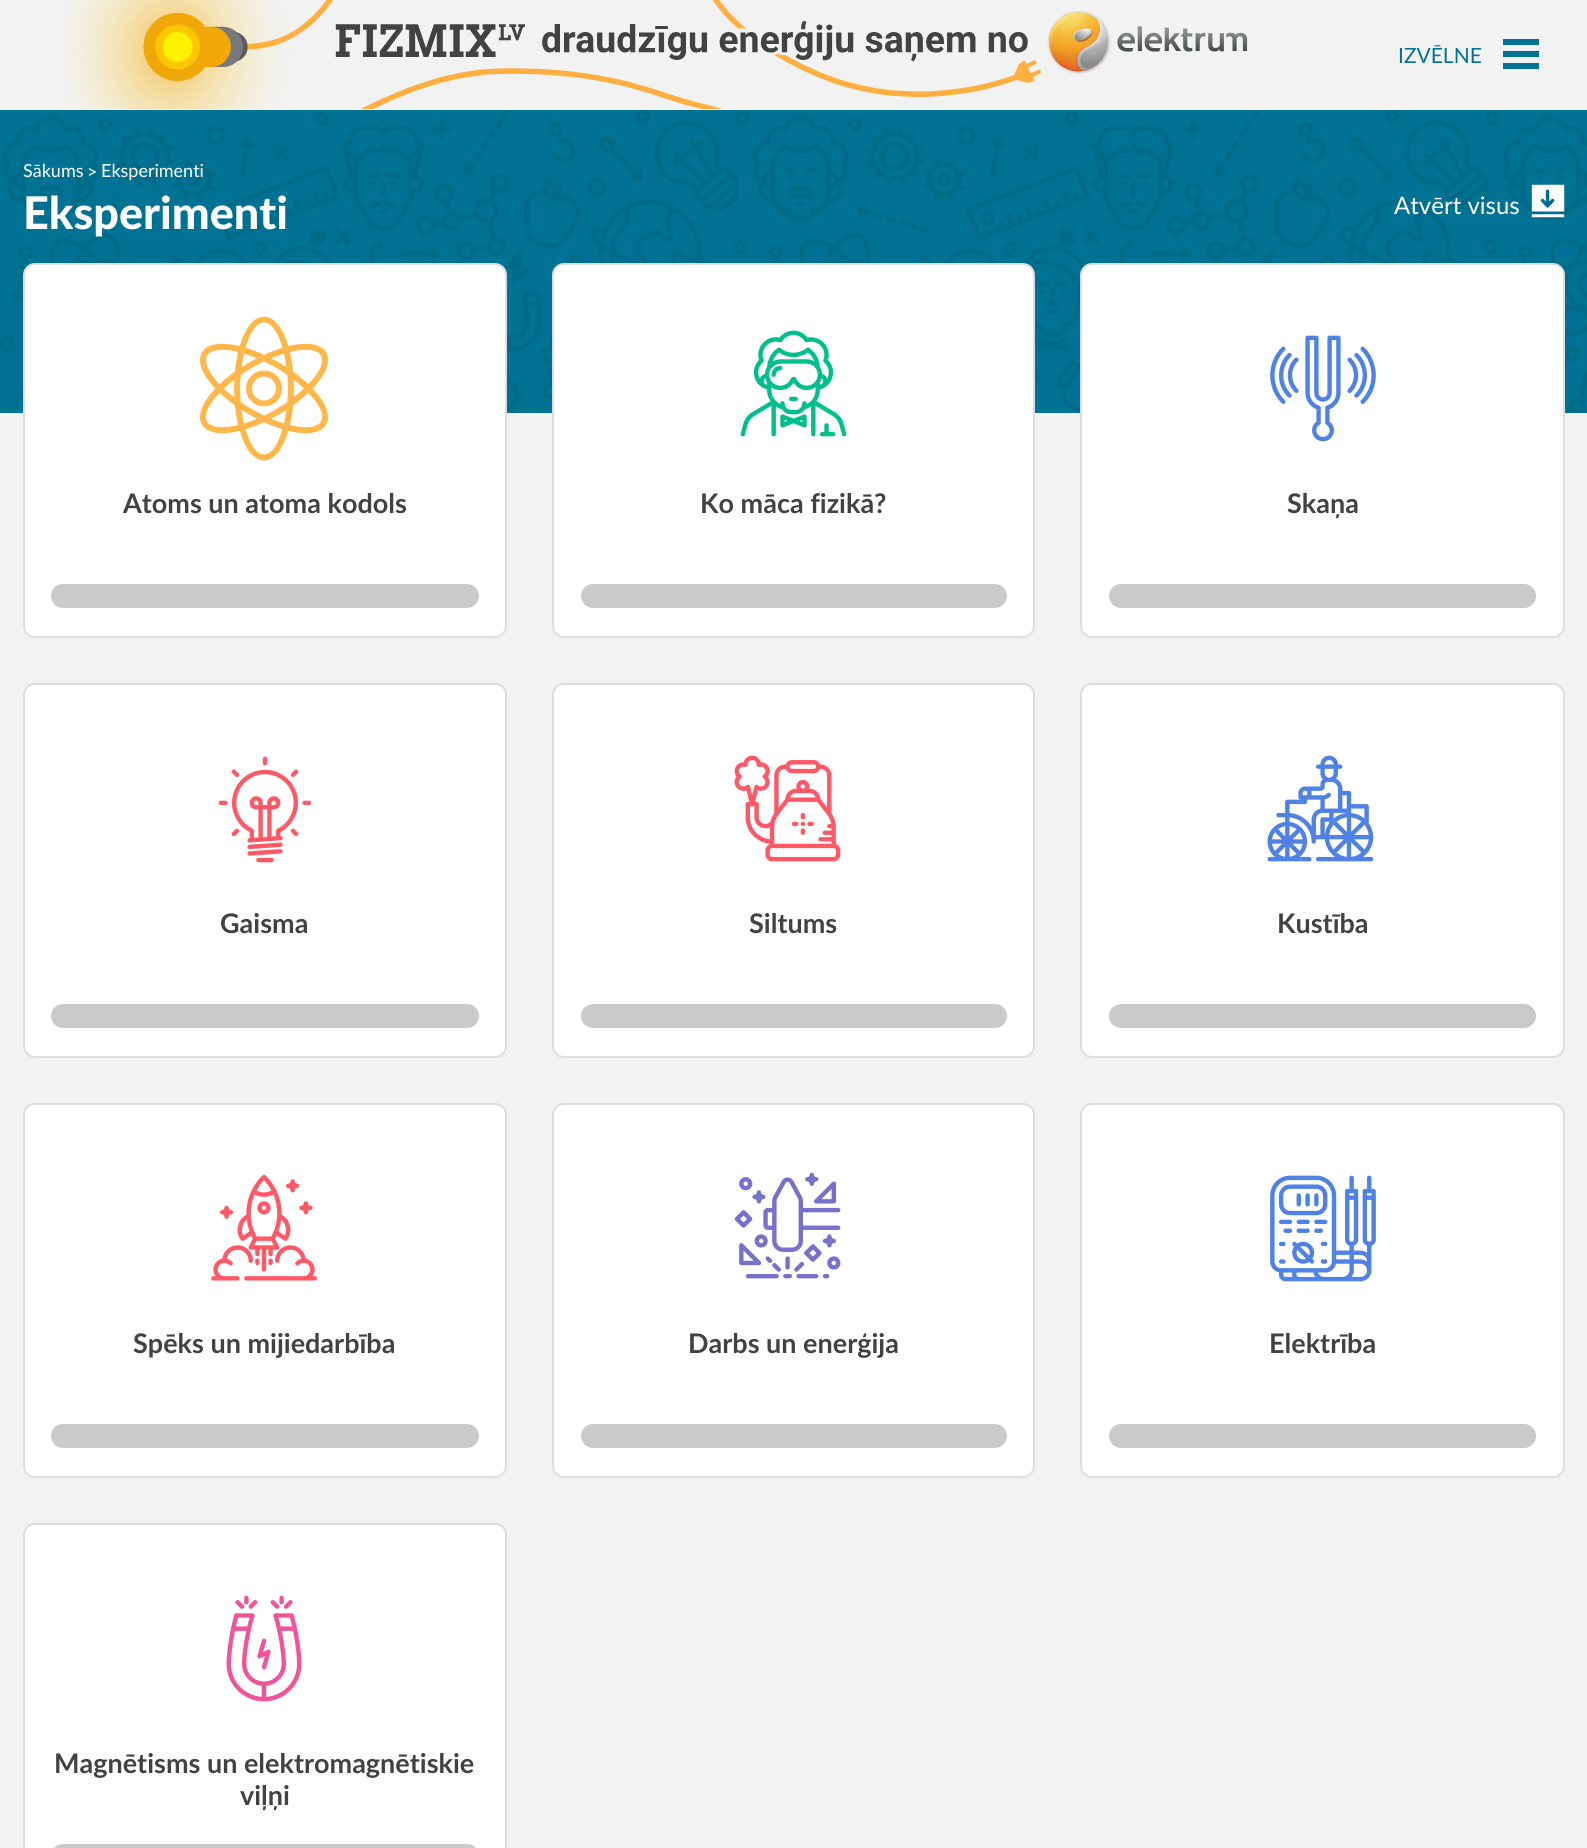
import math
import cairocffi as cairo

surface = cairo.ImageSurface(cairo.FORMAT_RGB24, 1587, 1848)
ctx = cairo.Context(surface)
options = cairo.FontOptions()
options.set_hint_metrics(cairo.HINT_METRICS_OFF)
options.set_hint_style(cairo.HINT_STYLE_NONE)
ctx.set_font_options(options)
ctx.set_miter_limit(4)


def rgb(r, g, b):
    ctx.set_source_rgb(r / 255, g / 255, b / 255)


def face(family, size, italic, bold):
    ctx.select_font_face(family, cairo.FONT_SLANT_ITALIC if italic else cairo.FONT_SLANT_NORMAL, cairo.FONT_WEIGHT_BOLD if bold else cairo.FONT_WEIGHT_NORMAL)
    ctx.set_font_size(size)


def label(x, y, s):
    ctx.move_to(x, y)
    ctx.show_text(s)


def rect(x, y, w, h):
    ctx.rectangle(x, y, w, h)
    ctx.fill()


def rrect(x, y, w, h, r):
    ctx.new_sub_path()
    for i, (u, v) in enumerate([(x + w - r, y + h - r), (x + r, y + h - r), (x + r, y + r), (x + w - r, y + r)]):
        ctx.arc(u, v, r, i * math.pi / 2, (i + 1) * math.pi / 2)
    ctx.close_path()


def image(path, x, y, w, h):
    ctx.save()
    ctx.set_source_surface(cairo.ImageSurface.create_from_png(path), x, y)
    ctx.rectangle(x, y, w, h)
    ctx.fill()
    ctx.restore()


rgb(242, 242, 242)
ctx.paint()
image('image0.png', 62, 0, 1186, 110)
face('Lato', 21, 0, 0)
rgb(0, 115, 149)
label(1398, 63, 'IZVĒLNE')
rect(1503, 63, 36, 6)
rect(1503, 51, 36, 6)
rect(1503, 39, 36, 6)
rect(0, 110, 1587, 303)
image('image1.png', 0, 110, 1587, 303)
face('Lato', 18, 0, 0)
rgb(254, 254, 254)
label(23, 177, 'Sākums')
label(87, 178, '>')
label(101, 177, 'Eksperimenti')
face('Lato Black', 45, 0, 0)
label(23, 229, 'Eksperimenti')
face('Lato', 24, 0, 0)
label(1394, 214, 'Atvērt visus')
image('image2.png', 1531, 184, 34, 34)
rgb(255, 255, 255)
rrect(24, 264, 482, 373, 11)
ctx.fill_preserve()
rgb(220, 221, 222)
ctx.stroke()
image('image3.png', 199, 317, 129, 144)
face('Lato', 27, 0, 1)
rgb(65, 66, 66)
label(123, 513, 'Atoms un atoma kodols')
rgb(202, 202, 202)
rrect(51, 584, 428, 24, 12)
ctx.fill()
rgb(255, 255, 255)
rrect(553, 264, 481, 373, 11)
ctx.fill_preserve()
rgb(220, 221, 222)
ctx.stroke()
image('image4.png', 740, 330, 107, 107)
rgb(65, 66, 66)
label(700, 513, 'Ko māca fizikā?')
rgb(202, 202, 202)
rrect(581, 584, 426, 24, 12)
ctx.fill()
rgb(255, 255, 255)
rrect(1081, 264, 483, 373, 11)
ctx.fill_preserve()
rgb(220, 221, 222)
ctx.stroke()
image('image5.png', 1270, 335, 106, 107)
rgb(65, 66, 66)
label(1287, 513, 'Skaņa')
rgb(202, 202, 202)
rrect(1109, 584, 427, 24, 12)
ctx.fill()
rgb(255, 255, 255)
rrect(24, 684, 482, 373, 11)
ctx.fill_preserve()
rgb(220, 221, 222)
ctx.stroke()
image('image6.png', 218, 756, 94, 107)
rgb(65, 66, 66)
label(220, 933, 'Gaisma')
rgb(202, 202, 202)
rrect(51, 1004, 428, 24, 12)
ctx.fill()
rgb(255, 255, 255)
rrect(553, 684, 481, 373, 11)
ctx.fill_preserve()
rgb(220, 221, 222)
ctx.stroke()
image('image7.png', 734, 755, 107, 107)
rgb(65, 66, 66)
label(749, 933, 'Siltums')
rgb(202, 202, 202)
rrect(581, 1004, 426, 24, 12)
ctx.fill()
rgb(255, 255, 255)
rrect(1081, 684, 483, 373, 11)
ctx.fill_preserve()
rgb(220, 221, 222)
ctx.stroke()
image('image8.png', 1267, 755, 107, 107)
rgb(65, 66, 66)
label(1277, 933, 'Kustība')
rgb(202, 202, 202)
rrect(1109, 1004, 427, 24, 12)
ctx.fill()
rgb(255, 255, 255)
rrect(24, 1104, 482, 373, 11)
ctx.fill_preserve()
rgb(220, 221, 222)
ctx.stroke()
image('image9.png', 211, 1174, 106, 107)
rgb(65, 66, 66)
label(133, 1353, 'Spēks un mijiedarbība')
rgb(202, 202, 202)
rrect(51, 1424, 428, 24, 12)
ctx.fill()
rgb(255, 255, 255)
rrect(553, 1104, 481, 373, 11)
ctx.fill_preserve()
rgb(220, 221, 222)
ctx.stroke()
image('image10.png', 734, 1172, 107, 107)
rgb(65, 66, 66)
label(688, 1353, 'Darbs un enerģija')
rgb(202, 202, 202)
rrect(581, 1424, 426, 24, 12)
ctx.fill()
rgb(255, 255, 255)
rrect(1081, 1104, 483, 373, 11)
ctx.fill_preserve()
rgb(220, 221, 222)
ctx.stroke()
image('image11.png', 1270, 1175, 106, 107)
rgb(65, 66, 66)
label(1269, 1353, 'Elektrība')
rgb(202, 202, 202)
rrect(1109, 1424, 427, 24, 12)
ctx.fill()
rgb(255, 255, 255)
rrect(24, 1524, 482, 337, 11)
ctx.fill_preserve()
rgb(220, 221, 222)
ctx.stroke()
image('image12.png', 226, 1595, 76, 107)
rgb(65, 66, 66)
label(54, 1773, 'Magnētisms un elektromagnētiskie')
label(240, 1805, 'viļņi')
rgb(202, 202, 202)
rrect(51, 1844, 428, 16, 12)
ctx.fill()
surface.write_to_png('render.png')
